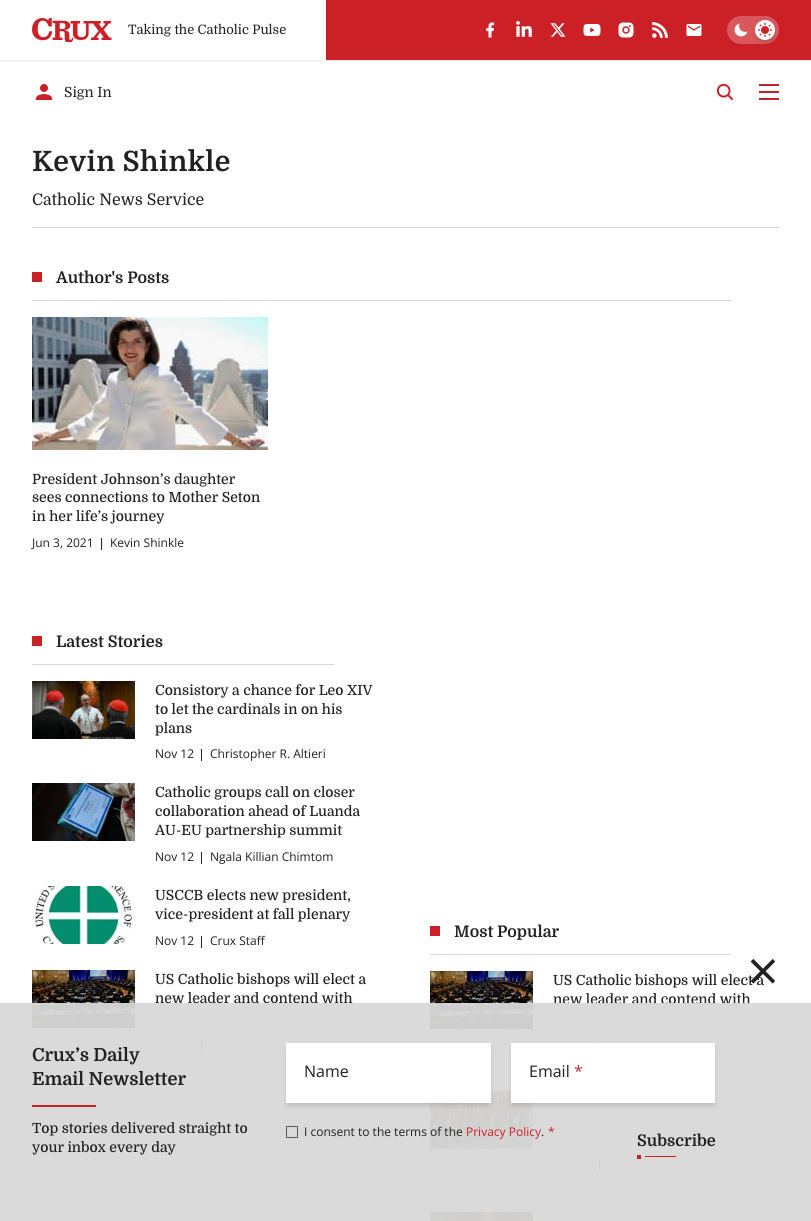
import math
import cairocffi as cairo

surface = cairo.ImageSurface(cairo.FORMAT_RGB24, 811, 1221)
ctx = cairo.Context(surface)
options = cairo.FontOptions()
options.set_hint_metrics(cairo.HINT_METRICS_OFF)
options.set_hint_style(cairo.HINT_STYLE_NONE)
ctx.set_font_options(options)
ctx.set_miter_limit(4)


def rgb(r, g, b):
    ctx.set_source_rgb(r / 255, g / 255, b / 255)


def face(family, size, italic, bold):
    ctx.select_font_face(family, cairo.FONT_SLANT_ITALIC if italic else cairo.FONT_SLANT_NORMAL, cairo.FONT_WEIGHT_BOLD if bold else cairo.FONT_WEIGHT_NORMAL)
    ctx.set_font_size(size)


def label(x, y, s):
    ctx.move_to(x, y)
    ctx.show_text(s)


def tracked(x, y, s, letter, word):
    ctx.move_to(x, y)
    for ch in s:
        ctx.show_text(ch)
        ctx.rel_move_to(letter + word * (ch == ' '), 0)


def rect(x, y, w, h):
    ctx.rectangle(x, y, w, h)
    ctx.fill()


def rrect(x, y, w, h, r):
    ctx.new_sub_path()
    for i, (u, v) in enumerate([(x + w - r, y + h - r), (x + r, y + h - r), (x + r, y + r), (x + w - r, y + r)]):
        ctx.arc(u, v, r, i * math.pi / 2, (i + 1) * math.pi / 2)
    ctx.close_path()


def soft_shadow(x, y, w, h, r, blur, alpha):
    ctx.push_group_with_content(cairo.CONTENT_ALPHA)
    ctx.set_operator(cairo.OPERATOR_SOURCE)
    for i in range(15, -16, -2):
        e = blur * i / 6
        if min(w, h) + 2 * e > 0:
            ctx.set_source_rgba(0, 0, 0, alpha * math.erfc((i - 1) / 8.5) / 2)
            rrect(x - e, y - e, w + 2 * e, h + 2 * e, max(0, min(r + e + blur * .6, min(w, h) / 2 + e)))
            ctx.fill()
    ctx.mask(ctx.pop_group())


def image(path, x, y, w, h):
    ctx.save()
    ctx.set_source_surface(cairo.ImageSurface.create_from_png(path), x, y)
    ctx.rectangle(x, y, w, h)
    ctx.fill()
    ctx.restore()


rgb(255, 255, 255)
ctx.paint()
ctx.save()
ctx.rectangle(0, 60, 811, 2)
ctx.clip()
rgb(0, 0, 0)
soft_shadow(0, 1, 811, 60, 0, 1.5, 0.1)
ctx.restore()
image('image0.png', 32, 18, 80, 24)
face('Domine', 13, 0, 0)
rgb(33, 33, 33)
label(128, 34, 'Taking the Catholic Pulse')
rgb(204, 32, 39)
rect(326, 0, 485, 60)
image('image1.png', 486, 22, 9, 16)
image('image2.png', 516, 21, 16, 16)
image('image3.png', 550, 23, 16, 14)
image('image4.png', 583, 24, 18, 12)
image('image5.png', 618, 22, 16, 16)
image('image6.png', 652, 22, 16, 16)
image('image7.png', 686, 24, 16, 12)
rgb(217, 88, 93)
rrect(727, 16, 52, 28, 14)
ctx.fill()
rgb(0, 0, 0)
soft_shadow(757, 24, 16, 16, 8, 2, 0.1)
soft_shadow(756, 25, 18, 18, 9, 3, 0.1)
rgb(255, 255, 255)
ctx.arc(765, 30, 10, 0, 2 * math.pi)
ctx.fill()
image('image8.png', 734, 23, 14, 14)
image('image9.png', 758, 23, 14, 14)
image('image10.png', 36, 84, 16, 16)
face('Domine', 14, 0, 0)
rgb(33, 33, 33)
label(64, 97, 'Sign In')
image('image11.png', 716, 83, 17, 17)
rgb(204, 32, 39)
rect(759, 84, 20, 2)
rect(759, 91, 20, 2)
rect(759, 98, 20, 2)
face('Domine', 28, 0, 1)
rgb(33, 33, 33)
tracked(32, 171, 'Kevin Shinkle', 0.4, 0)
rgb(217, 217, 217)
rect(32, 227, 747, 1)
face('Domine', 16, 0, 0)
rgb(33, 33, 33)
label(32, 205, 'Catholic News Service')
rgb(217, 217, 217)
rect(32, 300, 699, 1)
rgb(204, 32, 39)
rect(32, 272, 10, 10)
face('Domine', 16, 0, 1)
rgb(33, 33, 33)
label(56, 283, 'Author\'s Posts')
image('image12.png', 32, 317, 236, 133)
face('Domine Medium', 14, 0, 0)
label(32, 484, 'President Johnson’s daughter')
label(32, 502, 'sees connections to Mother Seton')
label(32, 521, 'in her life’s journey')
face('Open Sans', 12, 0, 0)
label(32, 547, 'Jun 3, 2021')
rect(101, 538, 1, 12)
label(110, 547, 'Kevin Shinkle')
rgb(217, 217, 217)
rect(32, 664, 302, 1)
rgb(204, 32, 39)
rect(32, 636, 10, 10)
face('Domine', 16, 0, 1)
rgb(33, 33, 33)
label(56, 647, 'Latest Stories')
image('image13.png', 32, 681, 103, 58)
face('Domine Medium', 14, 0, 0)
label(155, 695, 'Consistory a chance for Leo XIV')
label(155, 714, 'to let the cardinals in on his')
label(155, 733, 'plans')
face('Open Sans', 12, 0, 0)
label(155, 758, 'Nov 12')
rect(201, 749, 1, 12)
label(210, 758, 'Christopher R. Altieri')
image('image14.png', 32, 783, 103, 58)
face('Domine Medium', 14, 0, 0)
label(155, 797, 'Catholic groups call on closer')
label(155, 816, 'collaboration ahead of Luanda')
label(155, 835, 'AU-EU partnership summit')
face('Open Sans', 12, 0, 0)
label(155, 861, 'Nov 12')
rect(201, 852, 1, 12)
label(210, 861, 'Ngala Killian Chimtom')
image('image15.png', 32, 886, 103, 58)
face('Domine Medium', 14, 0, 0)
label(155, 900, 'USCCB elects new president,')
label(155, 919, 'vice-president at fall plenary')
face('Open Sans', 12, 0, 0)
label(155, 945, 'Nov 12')
rect(201, 936, 1, 12)
label(210, 945, 'Crux Staff')
image('image16.png', 32, 970, 103, 58)
face('Domine Medium', 14, 0, 0)
label(155, 984, 'US Catholic bishops will elect a')
label(155, 1003, 'new leader and contend with')
rect(201, 1039, 1, 11)
rgb(217, 217, 217)
rect(430, 954, 301, 1)
rgb(204, 32, 39)
rect(430, 926, 10, 10)
face('Domine', 16, 0, 1)
rgb(33, 33, 33)
label(454, 937, 'Most Popular')
image('image16.png', 430, 971, 103, 58)
face('Domine Medium', 14, 0, 0)
label(553, 985, 'US Catholic bishops will elect a')
label(553, 1004, 'new leader and contend with')
rect(599, 1039, 1, 12)
image('image17.png', 430, 1091, 103, 58)
rect(599, 1160, 1, 12)
image('image18.png', 430, 1212, 103, 9)
ctx.set_source_rgba(0.851, 0.851, 0.851, 0.95)
rect(0, 1003, 811, 218)
face('Open Sans', 56, 0, 0)
rgb(33, 33, 33)
label(747, 991, '×')
face('Domine', 18, 0, 1)
label(32, 1061, 'Crux’s Daily')
label(32, 1085, 'Email Newsletter')
rgb(204, 32, 39)
rect(32, 1105, 64, 2)
face('Domine Medium', 14, 0, 0)
rgb(33, 33, 33)
label(32, 1133, 'Top stories delivered straight to')
label(32, 1152, 'your inbox every day')
rgb(0, 0, 0)
soft_shadow(288, 1047, 201, 56, 0, 2, 0.1)
soft_shadow(287, 1048, 203, 58, 0, 3, 0.1)
rgb(255, 255, 255)
rect(286, 1043, 205, 60)
face('Open Sans', 16, 0, 0)
rgb(33, 33, 33)
label(304, 1077, 'Name')
rgb(0, 0, 0)
soft_shadow(513, 1047, 200, 56, 0, 2, 0.1)
soft_shadow(512, 1048, 202, 58, 0, 3, 0.1)
rgb(255, 255, 255)
rect(511, 1043, 204, 60)
rgb(33, 33, 33)
label(529, 1077, 'Email')
rgb(204, 32, 39)
label(574, 1077, '*')
ctx.rectangle(286.5, 1126.5, 11, 11)
rgb(87, 89, 91)
ctx.set_line_width(1)
ctx.stroke()
face('Open Sans', 12, 0, 0)
rgb(33, 33, 33)
label(304, 1136, 'I consent to the terms of the')
rgb(204, 32, 39)
label(466, 1136, 'Privacy Policy')
label(548, 1136, '*')
rgb(33, 33, 33)
label(541, 1136, '.')
face('Domine', 16, 0, 1)
label(637, 1146, 'Subscribe')
rgb(204, 32, 39)
rect(637, 1155, 4, 4)
rect(645, 1156, 31, 1)
surface.write_to_png('render.png')
